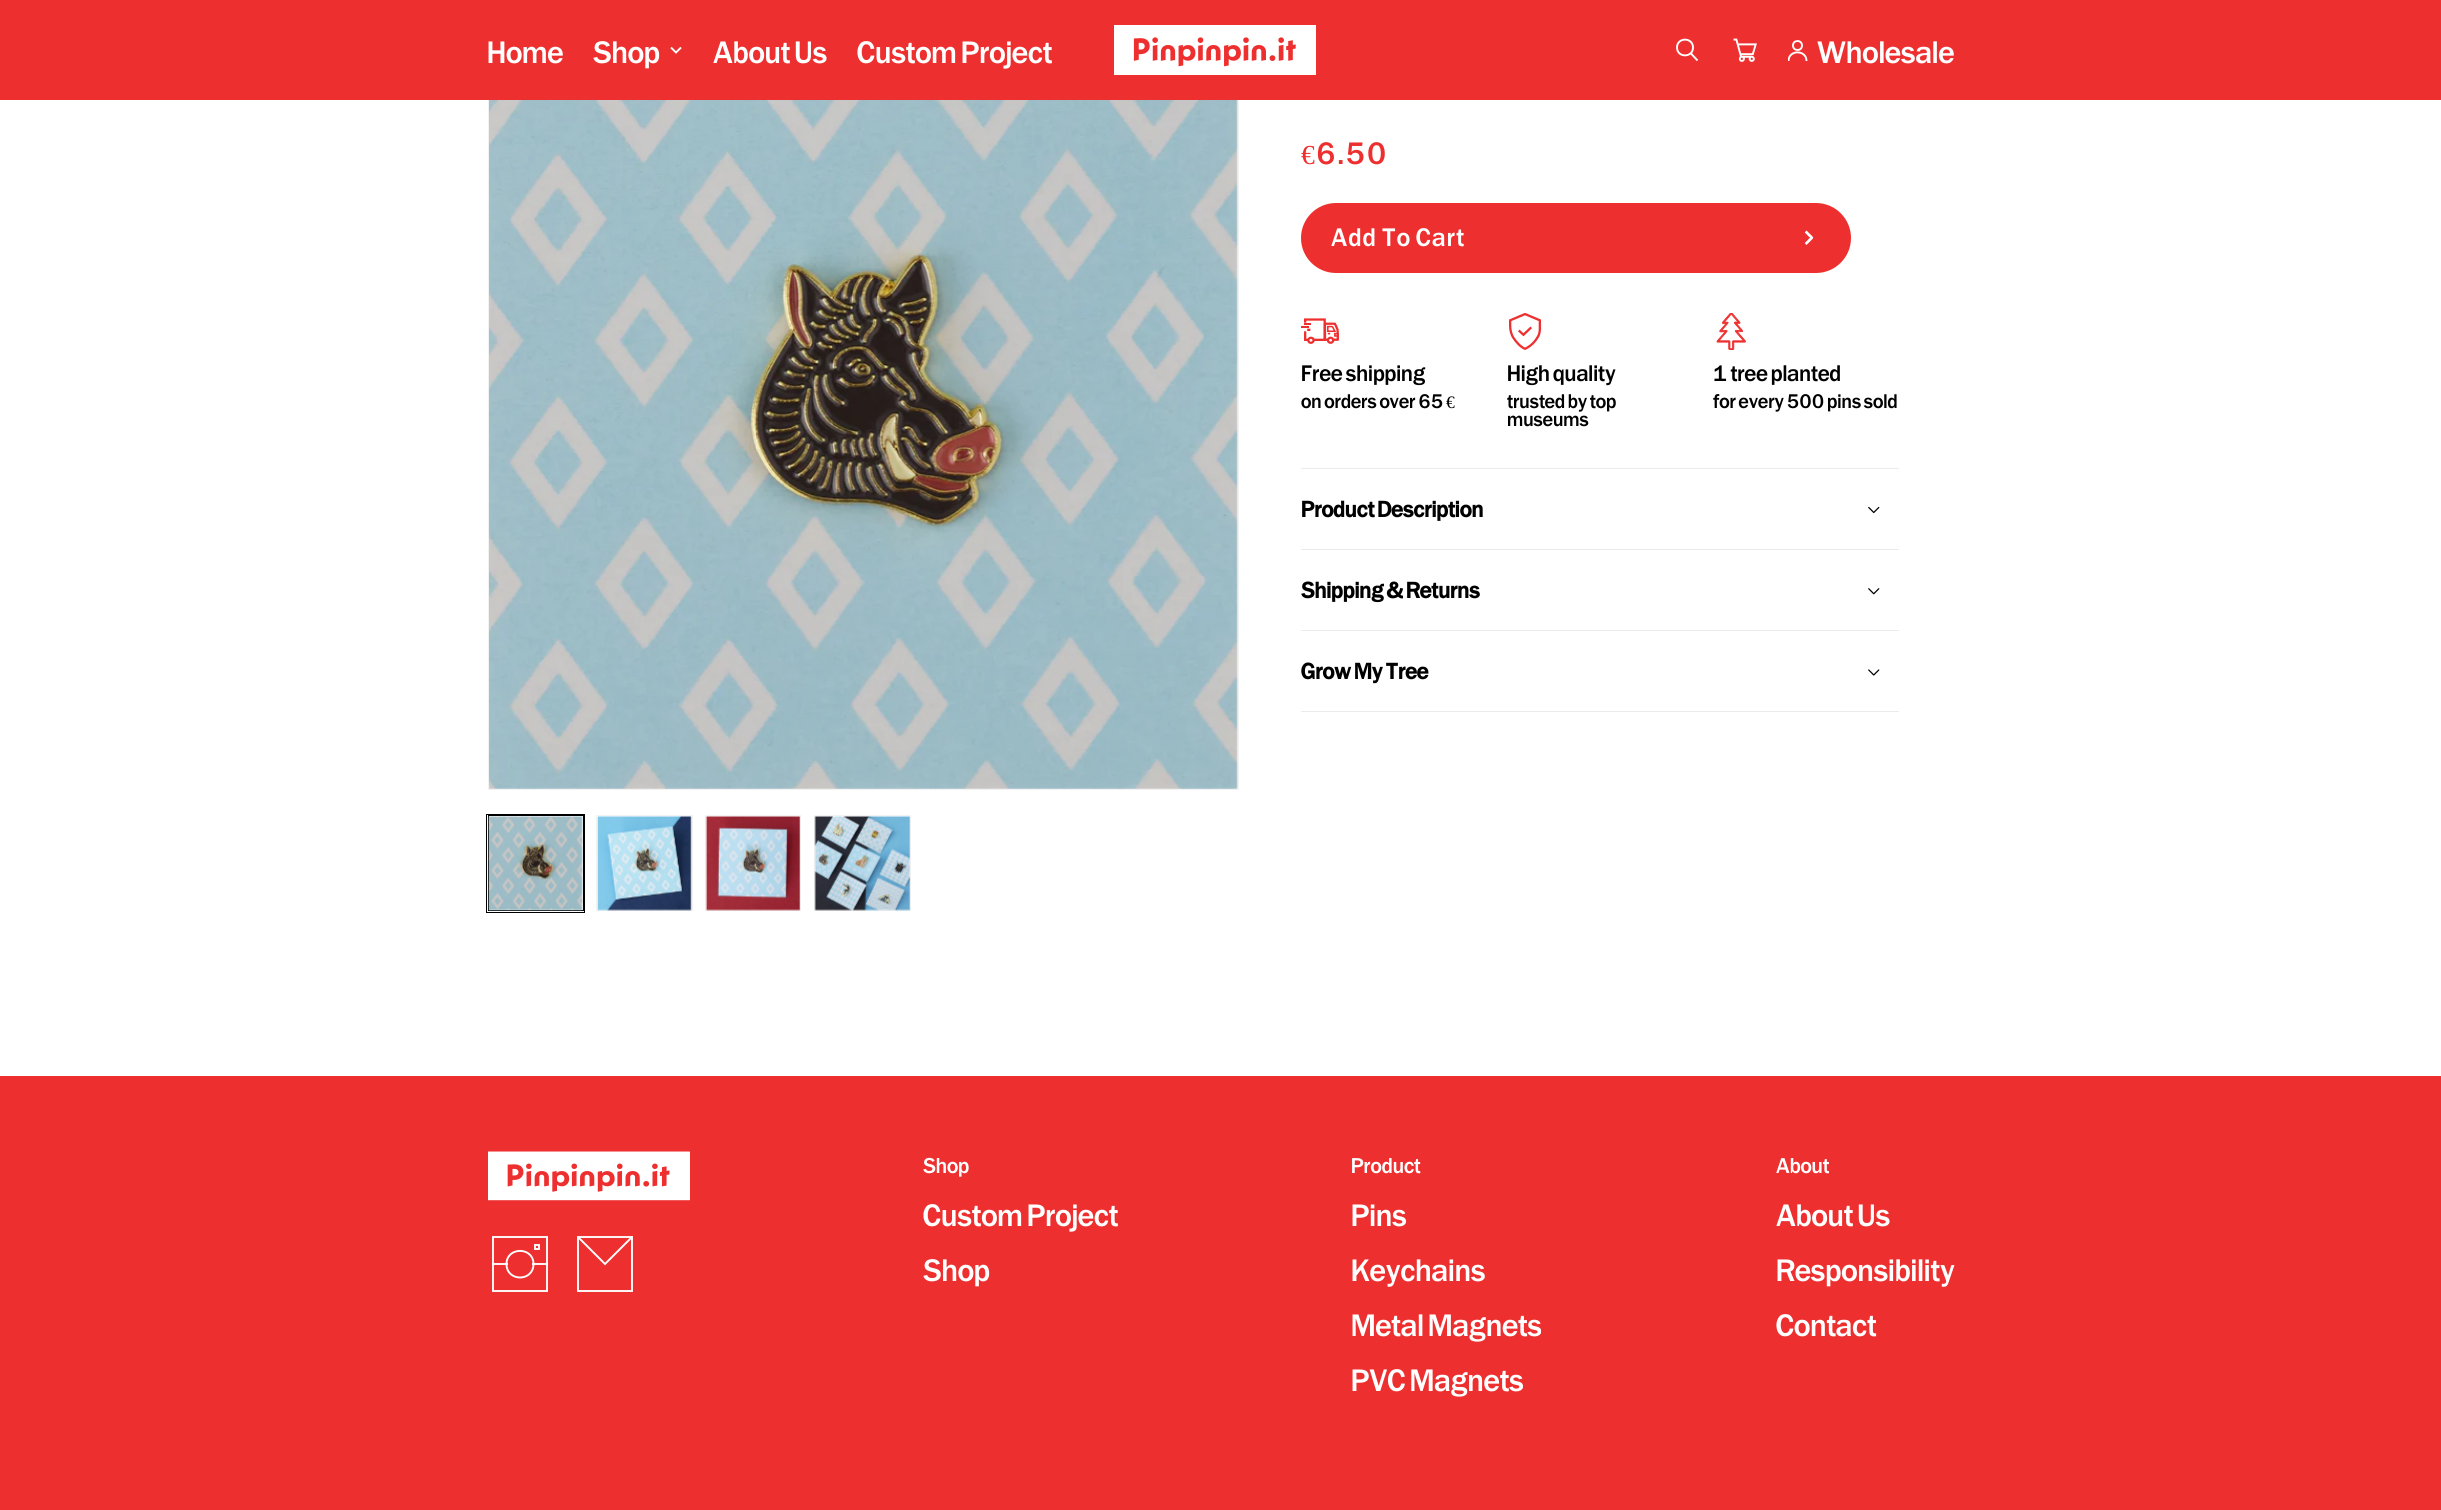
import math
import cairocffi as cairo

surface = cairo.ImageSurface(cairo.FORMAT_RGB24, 2441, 1510)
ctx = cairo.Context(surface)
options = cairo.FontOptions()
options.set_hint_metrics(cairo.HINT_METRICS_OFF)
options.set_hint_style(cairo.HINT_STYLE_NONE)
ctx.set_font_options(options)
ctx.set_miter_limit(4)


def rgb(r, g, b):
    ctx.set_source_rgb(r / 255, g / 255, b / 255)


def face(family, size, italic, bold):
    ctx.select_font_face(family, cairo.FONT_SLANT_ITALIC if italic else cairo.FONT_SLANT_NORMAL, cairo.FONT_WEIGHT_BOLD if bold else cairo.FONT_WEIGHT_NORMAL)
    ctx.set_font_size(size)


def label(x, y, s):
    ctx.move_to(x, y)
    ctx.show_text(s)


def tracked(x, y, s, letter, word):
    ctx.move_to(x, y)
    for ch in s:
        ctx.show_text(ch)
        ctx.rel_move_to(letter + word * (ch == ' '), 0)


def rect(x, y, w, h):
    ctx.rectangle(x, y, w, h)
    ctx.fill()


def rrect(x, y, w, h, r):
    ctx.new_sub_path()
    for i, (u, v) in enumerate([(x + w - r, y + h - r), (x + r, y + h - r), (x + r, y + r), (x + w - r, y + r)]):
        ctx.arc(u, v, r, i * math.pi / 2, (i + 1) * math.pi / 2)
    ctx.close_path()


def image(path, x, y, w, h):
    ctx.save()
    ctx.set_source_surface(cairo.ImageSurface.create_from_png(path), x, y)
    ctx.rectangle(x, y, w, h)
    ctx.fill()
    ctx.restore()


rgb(255, 255, 255)
ctx.paint()
ctx.rectangle(488.5, 29.5, 750, 760)
rgb(242, 242, 242)
ctx.set_line_width(1)
ctx.stroke()
rgb(237, 48, 47)
rect(0, 0, 2441, 100)
face('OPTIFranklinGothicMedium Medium', 27.5, 0, 0)
rgb(255, 255, 255)
label(487, 63, 'Home')
label(593, 63, 'Shop')
ctx.new_path()
ctx.move_to(671, 47.5)
ctx.line_to(676, 52.5)
ctx.line_to(681, 47.5)
ctx.set_line_width(1.9)
ctx.stroke()
label(713, 63, 'About Us')
label(857, 63, 'Custom Project')
image('image0.png', 1114, 25, 202, 50)
ctx.new_path()
ctx.move_to(1690.5, 53)
ctx.line_to(1697.5, 60.5)
ctx.move_to(1693, 47.5)
ctx.curve_to(1693, 58, 1677, 58, 1677, 47.5)
ctx.curve_to(1677, 37, 1693, 37, 1693, 47.5)
ctx.close_path()
ctx.stroke()
image('image1.png', 1733, 38, 24, 24)
ctx.save()
ctx.rectangle(1788, 39, 20, 22)
ctx.clip()
ctx.new_path()
ctx.move_to(1788.5, 61)
ctx.curve_to(1788.5, 49.5, 1806.5, 49.5, 1806.5, 61)
ctx.move_to(1802, 45.5)
ctx.curve_to(1802, 51.5, 1793, 51.5, 1793, 45.5)
ctx.curve_to(1793, 39.5, 1802, 39.5, 1802, 45.5)
ctx.close_path()
ctx.stroke()
ctx.restore()
label(1817, 63, 'Wholesale')
image('image2.png', 489, 100, 749, 689)
ctx.rectangle(486.5, 814.5, 98, 98)
rgb(0, 0, 0)
ctx.set_line_width(1)
ctx.stroke()
ctx.rectangle(488.5, 815.5, 95, 95)
ctx.stroke()
image('image3.png', 488, 816, 95, 95)
ctx.rectangle(596.5, 815.5, 96, 95)
rgb(242, 242, 242)
ctx.stroke()
image('image4.png', 597, 816, 95, 95)
ctx.rectangle(705.5, 815.5, 95, 95)
ctx.stroke()
image('image5.png', 705, 816, 96, 95)
ctx.rectangle(814.5, 815.5, 96, 95)
ctx.stroke()
image('image6.png', 814, 816, 97, 95)
face('Liberation Serif', 27.5, 0, 0)
rgb(237, 48, 47)
tracked(1301, 164, '€', 1.5, 0)
face('OPTIFranklinGothicMedium Medium', 27.5, 0, 0)
tracked(1316, 164, '6.50', 1.5, 0)
rrect(1301, 203, 550, 70, 35)
ctx.fill()
face('OPTIFranklinGothicMedium Medium', 22.5, 0, 0)
rgb(255, 255, 255)
tracked(1331, 246, 'Add To Cart', 1.25, 0)
image('image7.png', 1804, 230, 10, 15)
image('image8.png', 1301, 318, 38, 26)
face('OPTIFranklinGothicMedium Medium', 20, 0, 0)
rgb(0, 0, 0)
label(1301, 381, 'Free shipping')
face('OPTIFranklinGothicMedium Medium', 17.5, 0, 0)
label(1301, 408, 'on orders over 65')
face('Liberation Serif', 17.5, 0, 0)
label(1446, 408, '€')
image('image9.png', 1509, 313, 32, 37)
face('OPTIFranklinGothicMedium Medium', 20, 0, 0)
label(1507, 381, 'High quality')
face('OPTIFranklinGothicMedium Medium', 17.5, 0, 0)
label(1507, 408, 'trusted by top')
label(1507, 426, 'museums')
image('image10.png', 1716, 313, 30, 37)
face('OPTIFranklinGothicMedium Medium', 20, 0, 0)
label(1713, 381, '1 tree planted')
face('OPTIFranklinGothicMedium Medium', 17.5, 0, 0)
label(1713, 408, 'for every 500 pins sold')
rgb(235, 235, 235)
rect(1301, 468, 598, 1)
rect(1301, 549, 598, 1)
face('OPTIFranklinGothicMedium', 20, 0, 1)
rgb(0, 0, 0)
label(1301, 517, 'Product Description')
image('image11.png', 1868, 506, 12, 8)
rgb(235, 235, 235)
rect(1301, 630, 598, 1)
rgb(0, 0, 0)
label(1301, 598, 'Shipping & Returns')
image('image12.png', 1868, 588, 12, 7)
rgb(235, 235, 235)
rect(1301, 711, 598, 1)
rgb(0, 0, 0)
label(1301, 679, 'Grow My Tree')
image('image13.png', 1868, 669, 12, 7)
rgb(237, 48, 47)
rect(0, 1076, 2441, 434)
image('image14.png', 488, 1151, 202, 50)
ctx.new_path()
ctx.move_to(493, 1264)
ctx.line_to(508, 1264)
ctx.move_to(532, 1264)
ctx.line_to(547, 1264)
ctx.move_to(535, 1245)
ctx.line_to(539, 1245)
ctx.line_to(539, 1249)
ctx.line_to(535, 1249)
ctx.close_path()
ctx.move_to(493, 1237)
ctx.line_to(547, 1237)
ctx.line_to(547, 1291)
ctx.line_to(493, 1291)
ctx.close_path()
ctx.move_to(533.5, 1264)
ctx.curve_to(533.5, 1282, 506.5, 1282, 506.5, 1264)
ctx.curve_to(506.5, 1246.5, 533.5, 1246.5, 533.5, 1264)
ctx.close_path()
rgb(255, 255, 255)
ctx.set_line_width(1.9)
ctx.stroke()
ctx.new_path()
ctx.move_to(578, 1237)
ctx.line_to(632, 1237)
ctx.line_to(632, 1291)
ctx.line_to(578, 1291)
ctx.close_path()
ctx.move_to(578, 1237)
ctx.line_to(605, 1264)
ctx.line_to(631.5, 1237.5)
ctx.stroke()
face('OPTIFranklinGothicMedium Medium', 19, 0, 0)
label(923, 1173, 'Shop')
face('OPTIFranklinGothicMedium Medium', 27.5, 0, 0)
label(923, 1226, 'Custom Project')
label(923, 1281, 'Shop')
face('OPTIFranklinGothicMedium Medium', 19, 0, 0)
label(1351, 1173, 'Product')
face('OPTIFranklinGothicMedium Medium', 27.5, 0, 0)
label(1351, 1226, 'Pins')
label(1351, 1281, 'Keychains')
label(1351, 1336, 'Metal Magnets')
label(1351, 1391, 'PVC Magnets')
face('OPTIFranklinGothicMedium Medium', 19, 0, 0)
label(1776, 1173, 'About')
face('OPTIFranklinGothicMedium Medium', 27.5, 0, 0)
label(1776, 1226, 'About Us')
label(1776, 1281, 'Responsibility')
label(1776, 1336, 'Contact')
surface.write_to_png('render.png')
